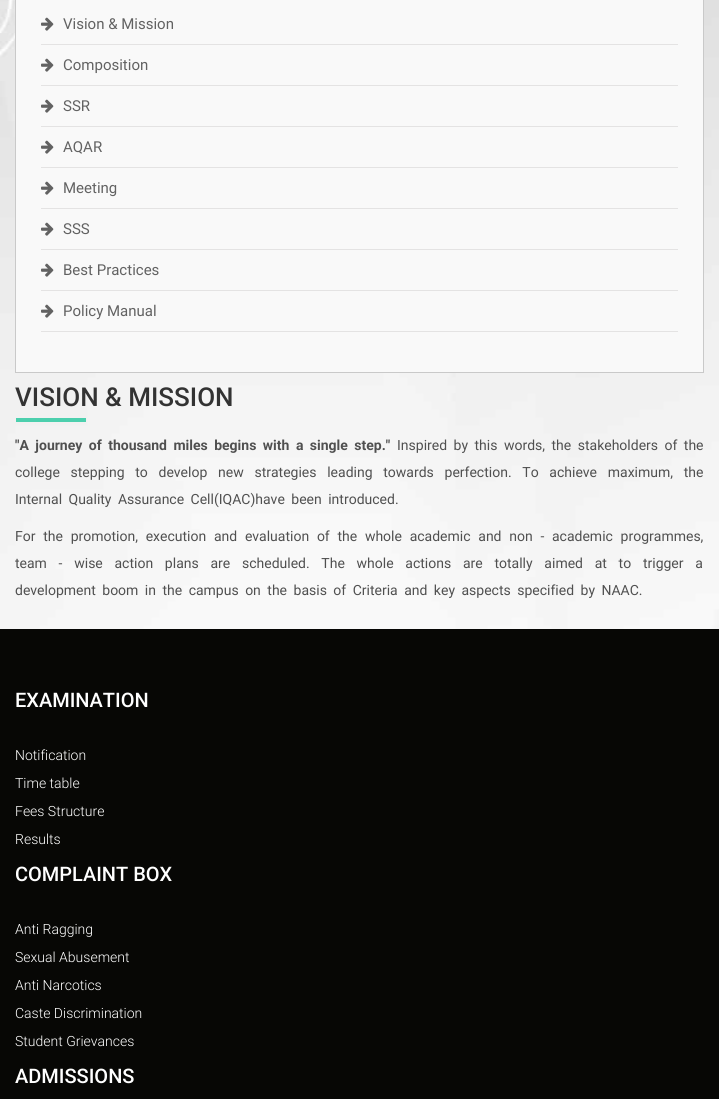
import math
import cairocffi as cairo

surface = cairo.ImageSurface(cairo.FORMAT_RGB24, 719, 1099)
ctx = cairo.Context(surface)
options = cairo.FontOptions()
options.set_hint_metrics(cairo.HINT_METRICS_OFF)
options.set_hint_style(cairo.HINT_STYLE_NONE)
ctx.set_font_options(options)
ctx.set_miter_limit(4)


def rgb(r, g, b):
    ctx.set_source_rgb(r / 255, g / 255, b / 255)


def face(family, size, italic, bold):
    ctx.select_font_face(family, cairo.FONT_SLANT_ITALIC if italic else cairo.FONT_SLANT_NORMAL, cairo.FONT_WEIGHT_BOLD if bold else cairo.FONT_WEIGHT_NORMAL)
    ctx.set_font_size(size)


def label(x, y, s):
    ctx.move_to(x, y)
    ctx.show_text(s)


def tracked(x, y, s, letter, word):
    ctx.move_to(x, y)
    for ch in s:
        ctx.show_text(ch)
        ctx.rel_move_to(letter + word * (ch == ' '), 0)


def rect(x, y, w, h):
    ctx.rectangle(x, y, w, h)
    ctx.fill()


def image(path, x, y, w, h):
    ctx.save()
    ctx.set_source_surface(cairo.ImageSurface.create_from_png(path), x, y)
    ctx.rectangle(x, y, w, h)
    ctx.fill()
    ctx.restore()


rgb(255, 255, 255)
ctx.paint()
image('image0.png', 0, 0, 719, 629)
rgb(249, 249, 249)
ctx.rectangle(15.5, -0.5, 688, 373)
ctx.fill_preserve()
rgb(201, 201, 201)
ctx.set_line_width(1)
ctx.stroke()
rgb(228, 227, 227)
rect(41, 44, 637, 1)
image('image1.png', 41, 17, 13, 14)
face('Roboto', 15, 0, 0)
rgb(98, 98, 98)
label(63, 29, 'Vision & Mission')
rgb(228, 227, 227)
rect(41, 85, 637, 1)
image('image1.png', 41, 58, 13, 14)
rgb(98, 98, 98)
label(63, 70, 'Composition')
rgb(228, 227, 227)
rect(41, 126, 637, 1)
image('image1.png', 41, 99, 13, 14)
rgb(98, 98, 98)
label(63, 111, 'SSR')
rgb(228, 227, 227)
rect(41, 167, 637, 1)
image('image1.png', 41, 140, 13, 14)
rgb(98, 98, 98)
label(63, 152, 'AQAR')
rgb(228, 227, 227)
rect(41, 208, 637, 1)
image('image1.png', 41, 181, 13, 14)
rgb(98, 98, 98)
label(63, 193, 'Meeting')
rgb(228, 227, 227)
rect(41, 249, 637, 1)
image('image1.png', 41, 222, 13, 14)
rgb(98, 98, 98)
label(63, 234, 'SSS')
rgb(228, 227, 227)
rect(41, 290, 637, 1)
image('image1.png', 41, 263, 13, 14)
rgb(98, 98, 98)
label(63, 275, 'Best Practices')
rgb(228, 227, 227)
rect(41, 331, 637, 1)
image('image1.png', 41, 304, 13, 14)
rgb(98, 98, 98)
label(63, 316, 'Policy Manual')
face('Roboto Medium', 26, 0, 0)
rgb(51, 51, 51)
label(15, 406, 'VISION & MISSION')
rgb(76, 207, 173)
rect(16, 418, 70, 4)
face('Roboto', 14, 0, 1)
rgb(80, 80, 80)
tracked(15, 450, '"A journey of thousand miles begins with a single step."', 0, 3)
face('Roboto', 14, 0, 0)
tracked(397, 450, 'Inspired by this words, the stakeholders of the', 0, 3)
tracked(15, 477, 'college stepping to develop new strategies leading towards perfection. To achieve maximum, the', 0, 7.25)
tracked(15, 504, 'Internal Quality Assurance Cell(IQAC)have been introduced.', 0, 3)
tracked(15, 541, 'For the promotion, execution and evaluation of the whole academic and non - academic programmes,', 0, 4.25)
tracked(15, 568, 'team - wise action plans are scheduled. The whole actions are totally aimed at to trigger a', 0, 8.25)
tracked(15, 595, 'development boom in the campus on the basis of Criteria and key aspects specified by NAAC.', 0, 3)
rgb(7, 7, 5)
rect(0, 629, 719, 470)
face('Roboto Medium', 20, 0, 0)
rgb(255, 255, 255)
label(15, 707, 'EXAMINATION')
face('Roboto Light', 14, 0, 0)
label(15, 760, 'Notification')
label(15, 788, 'Time table')
label(15, 816, 'Fees Structure')
label(15, 844, 'Results')
face('Roboto Medium', 20, 0, 0)
label(15, 881, 'COMPLAINT BOX')
face('Roboto Light', 14, 0, 0)
label(15, 934, 'Anti Ragging')
label(15, 962, 'Sexual Abusement')
label(15, 990, 'Anti Narcotics')
label(15, 1018, 'Caste Discrimination')
label(15, 1046, 'Student Grievances')
face('Roboto Medium', 20, 0, 0)
label(15, 1083, 'ADMISSIONS')
surface.write_to_png('render.png')
